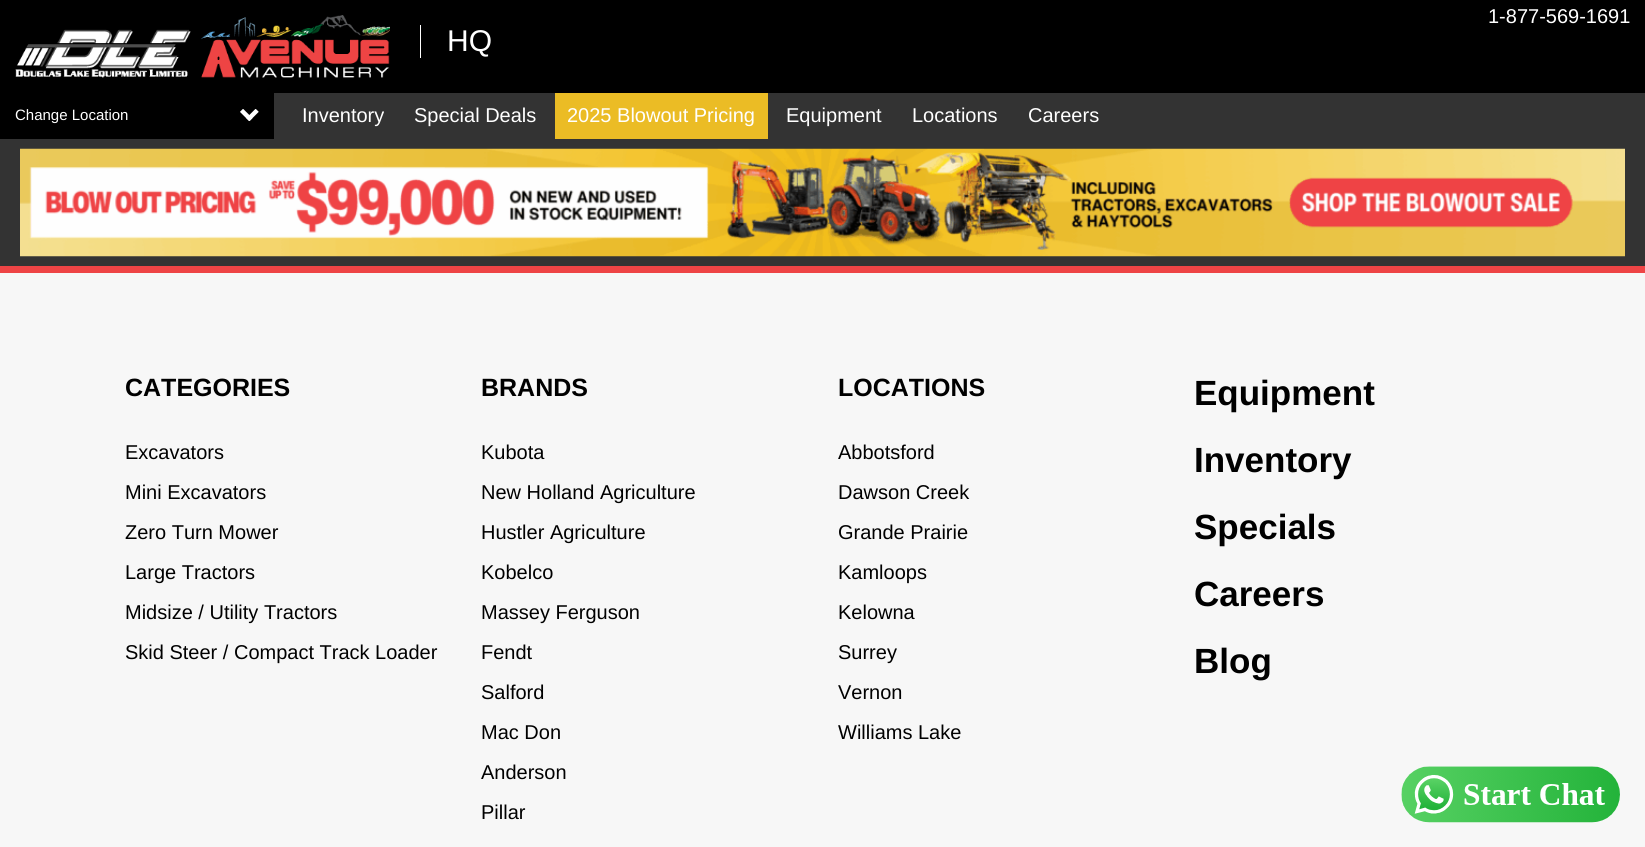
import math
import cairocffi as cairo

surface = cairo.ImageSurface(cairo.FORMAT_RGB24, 1645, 847)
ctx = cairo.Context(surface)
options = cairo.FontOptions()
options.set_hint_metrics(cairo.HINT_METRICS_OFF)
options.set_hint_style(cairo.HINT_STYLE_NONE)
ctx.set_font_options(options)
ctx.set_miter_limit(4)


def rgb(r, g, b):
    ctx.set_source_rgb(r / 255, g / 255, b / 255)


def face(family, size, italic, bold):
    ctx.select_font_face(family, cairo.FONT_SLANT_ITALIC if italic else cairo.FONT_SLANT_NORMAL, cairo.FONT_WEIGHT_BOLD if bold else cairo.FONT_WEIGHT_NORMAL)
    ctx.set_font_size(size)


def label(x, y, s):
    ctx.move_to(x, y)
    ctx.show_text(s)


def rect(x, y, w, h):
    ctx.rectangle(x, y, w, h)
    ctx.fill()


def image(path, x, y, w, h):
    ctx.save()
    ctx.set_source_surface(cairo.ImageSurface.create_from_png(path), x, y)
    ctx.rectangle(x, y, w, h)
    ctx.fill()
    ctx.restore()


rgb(0, 0, 0)
ctx.paint()
face('Liberation Sans', 20, 0, 0)
rgb(255, 255, 255)
label(1488, 23, '1-877-569-1691')
image('image0.png', 15, 15, 375, 63)
rect(420, 25, 1, 33)
face('Liberation Sans', 30, 0, 0)
label(447, 51, 'HQ')
image('image1.png', 240, 109, 19, 12)
face('Liberation Sans', 15, 0, 0)
label(15, 120, 'Change Location')
rgb(51, 51, 51)
rect(274, 93, 1371, 46)
face('Liberation Sans', 20, 0, 0)
rgb(255, 255, 255)
label(302, 122, 'Inventory')
label(414, 122, 'Special Deals')
rgb(235, 188, 37)
rect(555, 93, 213, 46)
rgb(255, 255, 255)
label(567, 122, '2025 Blowout Pricing')
label(786, 122, 'Equipment')
label(912, 122, 'Locations')
label(1028, 122, 'Careers')
rgb(51, 51, 51)
rect(0, 139, 1645, 127)
image('image2.png', 20, 148, 1605, 109)
rgb(247, 247, 247)
rect(0, 273, 1645, 574)
rgb(238, 68, 69)
rect(0, 266, 1645, 7)
face('Liberation Sans', 25, 0, 1)
rgb(0, 0, 0)
label(125, 396, 'CATEGORIES')
face('Liberation Sans', 20, 0, 0)
label(125, 459, 'Excavators')
label(125, 499, 'Mini Excavators')
label(125, 539, 'Zero Turn Mower')
label(125, 579, 'Large Tractors')
label(125, 619, 'Midsize / Utility Tractors')
label(125, 659, 'Skid Steer / Compact Track Loader')
face('Liberation Sans', 25, 0, 1)
label(481, 396, 'BRANDS')
face('Liberation Sans', 20, 0, 0)
label(481, 459, 'Kubota')
label(481, 499, 'New Holland Agriculture')
label(481, 539, 'Hustler Agriculture')
label(481, 579, 'Kobelco')
label(481, 619, 'Massey Ferguson')
label(481, 659, 'Fendt')
label(481, 699, 'Salford')
label(481, 739, 'Mac Don')
label(481, 779, 'Anderson')
label(481, 819, 'Pillar')
face('Liberation Sans', 25, 0, 1)
label(838, 396, 'LOCATIONS')
face('Liberation Sans', 20, 0, 0)
label(838, 459, 'Abbotsford')
label(838, 499, 'Dawson Creek')
label(838, 539, 'Grande Prairie')
label(838, 579, 'Kamloops')
label(838, 619, 'Kelowna')
label(838, 659, 'Surrey')
label(838, 699, 'Vernon')
label(838, 739, 'Williams Lake')
face('Liberation Sans', 35, 0, 1)
label(1194, 405, 'Equipment')
label(1194, 472, 'Inventory')
label(1194, 539, 'Specials')
label(1194, 606, 'Careers')
label(1194, 673, 'Blog')
image('image3.png', 1401, 766, 219, 57)
surface.write_to_png('render.png')
